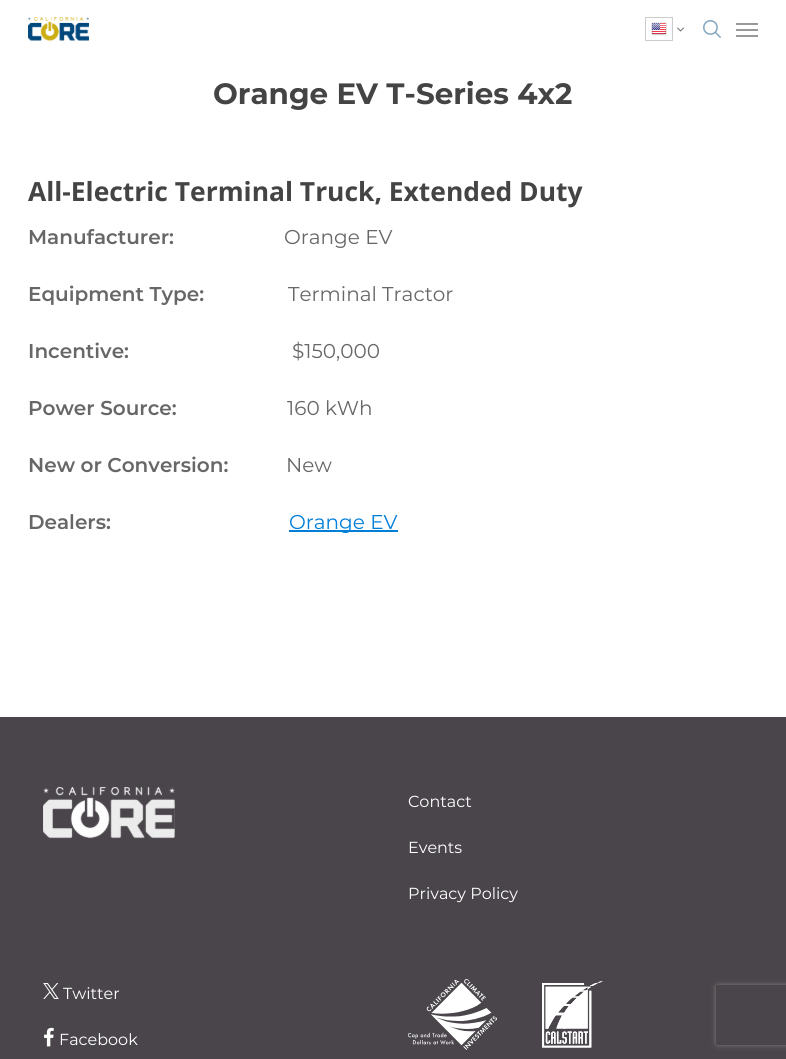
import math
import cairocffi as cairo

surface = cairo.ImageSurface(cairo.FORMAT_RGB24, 786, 1059)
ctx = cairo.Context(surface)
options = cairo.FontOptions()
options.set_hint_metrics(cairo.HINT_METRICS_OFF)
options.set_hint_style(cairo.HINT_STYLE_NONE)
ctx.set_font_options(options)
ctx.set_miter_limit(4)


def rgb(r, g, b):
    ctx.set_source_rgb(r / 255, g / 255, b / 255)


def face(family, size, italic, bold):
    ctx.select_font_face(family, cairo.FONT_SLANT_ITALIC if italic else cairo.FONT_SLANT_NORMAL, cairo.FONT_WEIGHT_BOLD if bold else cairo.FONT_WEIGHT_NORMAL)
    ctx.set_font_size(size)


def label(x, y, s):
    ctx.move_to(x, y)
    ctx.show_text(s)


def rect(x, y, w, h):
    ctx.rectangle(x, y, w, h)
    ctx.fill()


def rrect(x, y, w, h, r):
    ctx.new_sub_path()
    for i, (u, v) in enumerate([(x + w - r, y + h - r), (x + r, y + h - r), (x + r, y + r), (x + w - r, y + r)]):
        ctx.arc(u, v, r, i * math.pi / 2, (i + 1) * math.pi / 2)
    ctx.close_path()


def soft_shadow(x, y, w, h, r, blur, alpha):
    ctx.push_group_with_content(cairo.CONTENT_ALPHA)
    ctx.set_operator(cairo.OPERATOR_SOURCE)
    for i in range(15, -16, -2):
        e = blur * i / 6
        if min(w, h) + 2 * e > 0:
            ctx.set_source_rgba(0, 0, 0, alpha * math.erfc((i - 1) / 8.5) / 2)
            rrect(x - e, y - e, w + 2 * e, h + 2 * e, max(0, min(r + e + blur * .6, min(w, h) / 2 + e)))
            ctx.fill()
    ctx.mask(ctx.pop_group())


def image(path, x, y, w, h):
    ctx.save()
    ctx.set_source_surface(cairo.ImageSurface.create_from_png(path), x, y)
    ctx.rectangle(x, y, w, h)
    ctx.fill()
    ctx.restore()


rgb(255, 255, 255)
ctx.paint()
image('image0.png', 28, 17, 61, 24)
ctx.rectangle(645.5, 17.5, 27, 23)
rgb(204, 204, 204)
ctx.set_line_width(1)
ctx.stroke()
image('image1.png', 651, 22, 16, 14)
image('image2.png', 677, 27, 7, 5)
image('image3.png', 703, 20, 18, 18)
rgb(153, 153, 153)
rect(736, 23, 22, 2)
rect(736, 35, 22, 2)
rect(736, 29, 22, 2)
face('Montserrat', 29.4, 0, 1)
rgb(68, 68, 68)
label(213, 104, 'Orange EV T-Series 4x2')
face('Open Sans', 26.4, 0, 1)
label(28, 201, 'All-Electric Terminal Truck, Extended Duty')
face('Montserrat SemiBold', 20, 0, 0)
rgb(103, 103, 103)
label(28, 244, 'Manufacturer:')
face('Montserrat', 20, 0, 0)
label(284, 244, 'Orange EV')
face('Montserrat SemiBold', 20, 0, 0)
label(28, 301, 'Equipment Type:')
face('Montserrat', 20, 0, 0)
label(288, 301, 'Terminal Tractor')
face('Montserrat SemiBold', 20, 0, 0)
label(28, 358, 'Incentive:')
face('Montserrat', 20, 0, 0)
label(292, 358, '$150,000')
face('Montserrat SemiBold', 20, 0, 0)
label(28, 415, 'Power Source:')
face('Montserrat', 20, 0, 0)
label(287, 415, '160 kWh')
face('Montserrat SemiBold', 20, 0, 0)
label(28, 472, 'New or Conversion:')
face('Montserrat', 20, 0, 0)
label(286, 472, 'New')
face('Montserrat SemiBold', 20, 0, 0)
label(28, 529, 'Dealers:')
rgb(0, 126, 216)
rect(289, 530, 109, 2)
face('Montserrat', 20, 0, 0)
label(289, 529, 'Orange EV')
rgb(73, 69, 74)
rect(0, 717, 786, 342)
image('image4.png', 43, 787, 132, 52)
face('Montserrat', 16, 0, 0)
rgb(255, 255, 255)
label(408, 807, 'Contact')
label(408, 853, 'Events')
label(408, 899, 'Privacy Policy')
image('image5.png', 43, 983, 16, 16)
label(63, 999, 'Twitter')
image('image6.png', 44, 1027, 10, 20)
label(59, 1045, 'Facebook')
image('image7.png', 408, 979, 195, 71)
ctx.save()
ctx.set_fill_rule(cairo.FILL_RULE_EVEN_ODD)
ctx.new_path()
ctx.move_to(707, 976)
ctx.line_to(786, 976)
ctx.line_to(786, 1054)
ctx.line_to(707, 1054)
ctx.close_path()
ctx.move_to(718, 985)
ctx.line_to(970, 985)
ctx.curve_to(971, 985, 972, 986, 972, 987)
ctx.line_to(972, 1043)
ctx.curve_to(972, 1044, 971, 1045, 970, 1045)
ctx.line_to(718, 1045)
ctx.curve_to(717, 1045, 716, 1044, 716, 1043)
ctx.line_to(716, 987)
ctx.curve_to(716, 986, 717, 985, 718, 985)
ctx.close_path()
ctx.clip()
rgb(128, 128, 128)
soft_shadow(716, 985, 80, 60, 2, 2.5, 1)
ctx.restore()
surface.write_to_png('render.png')
